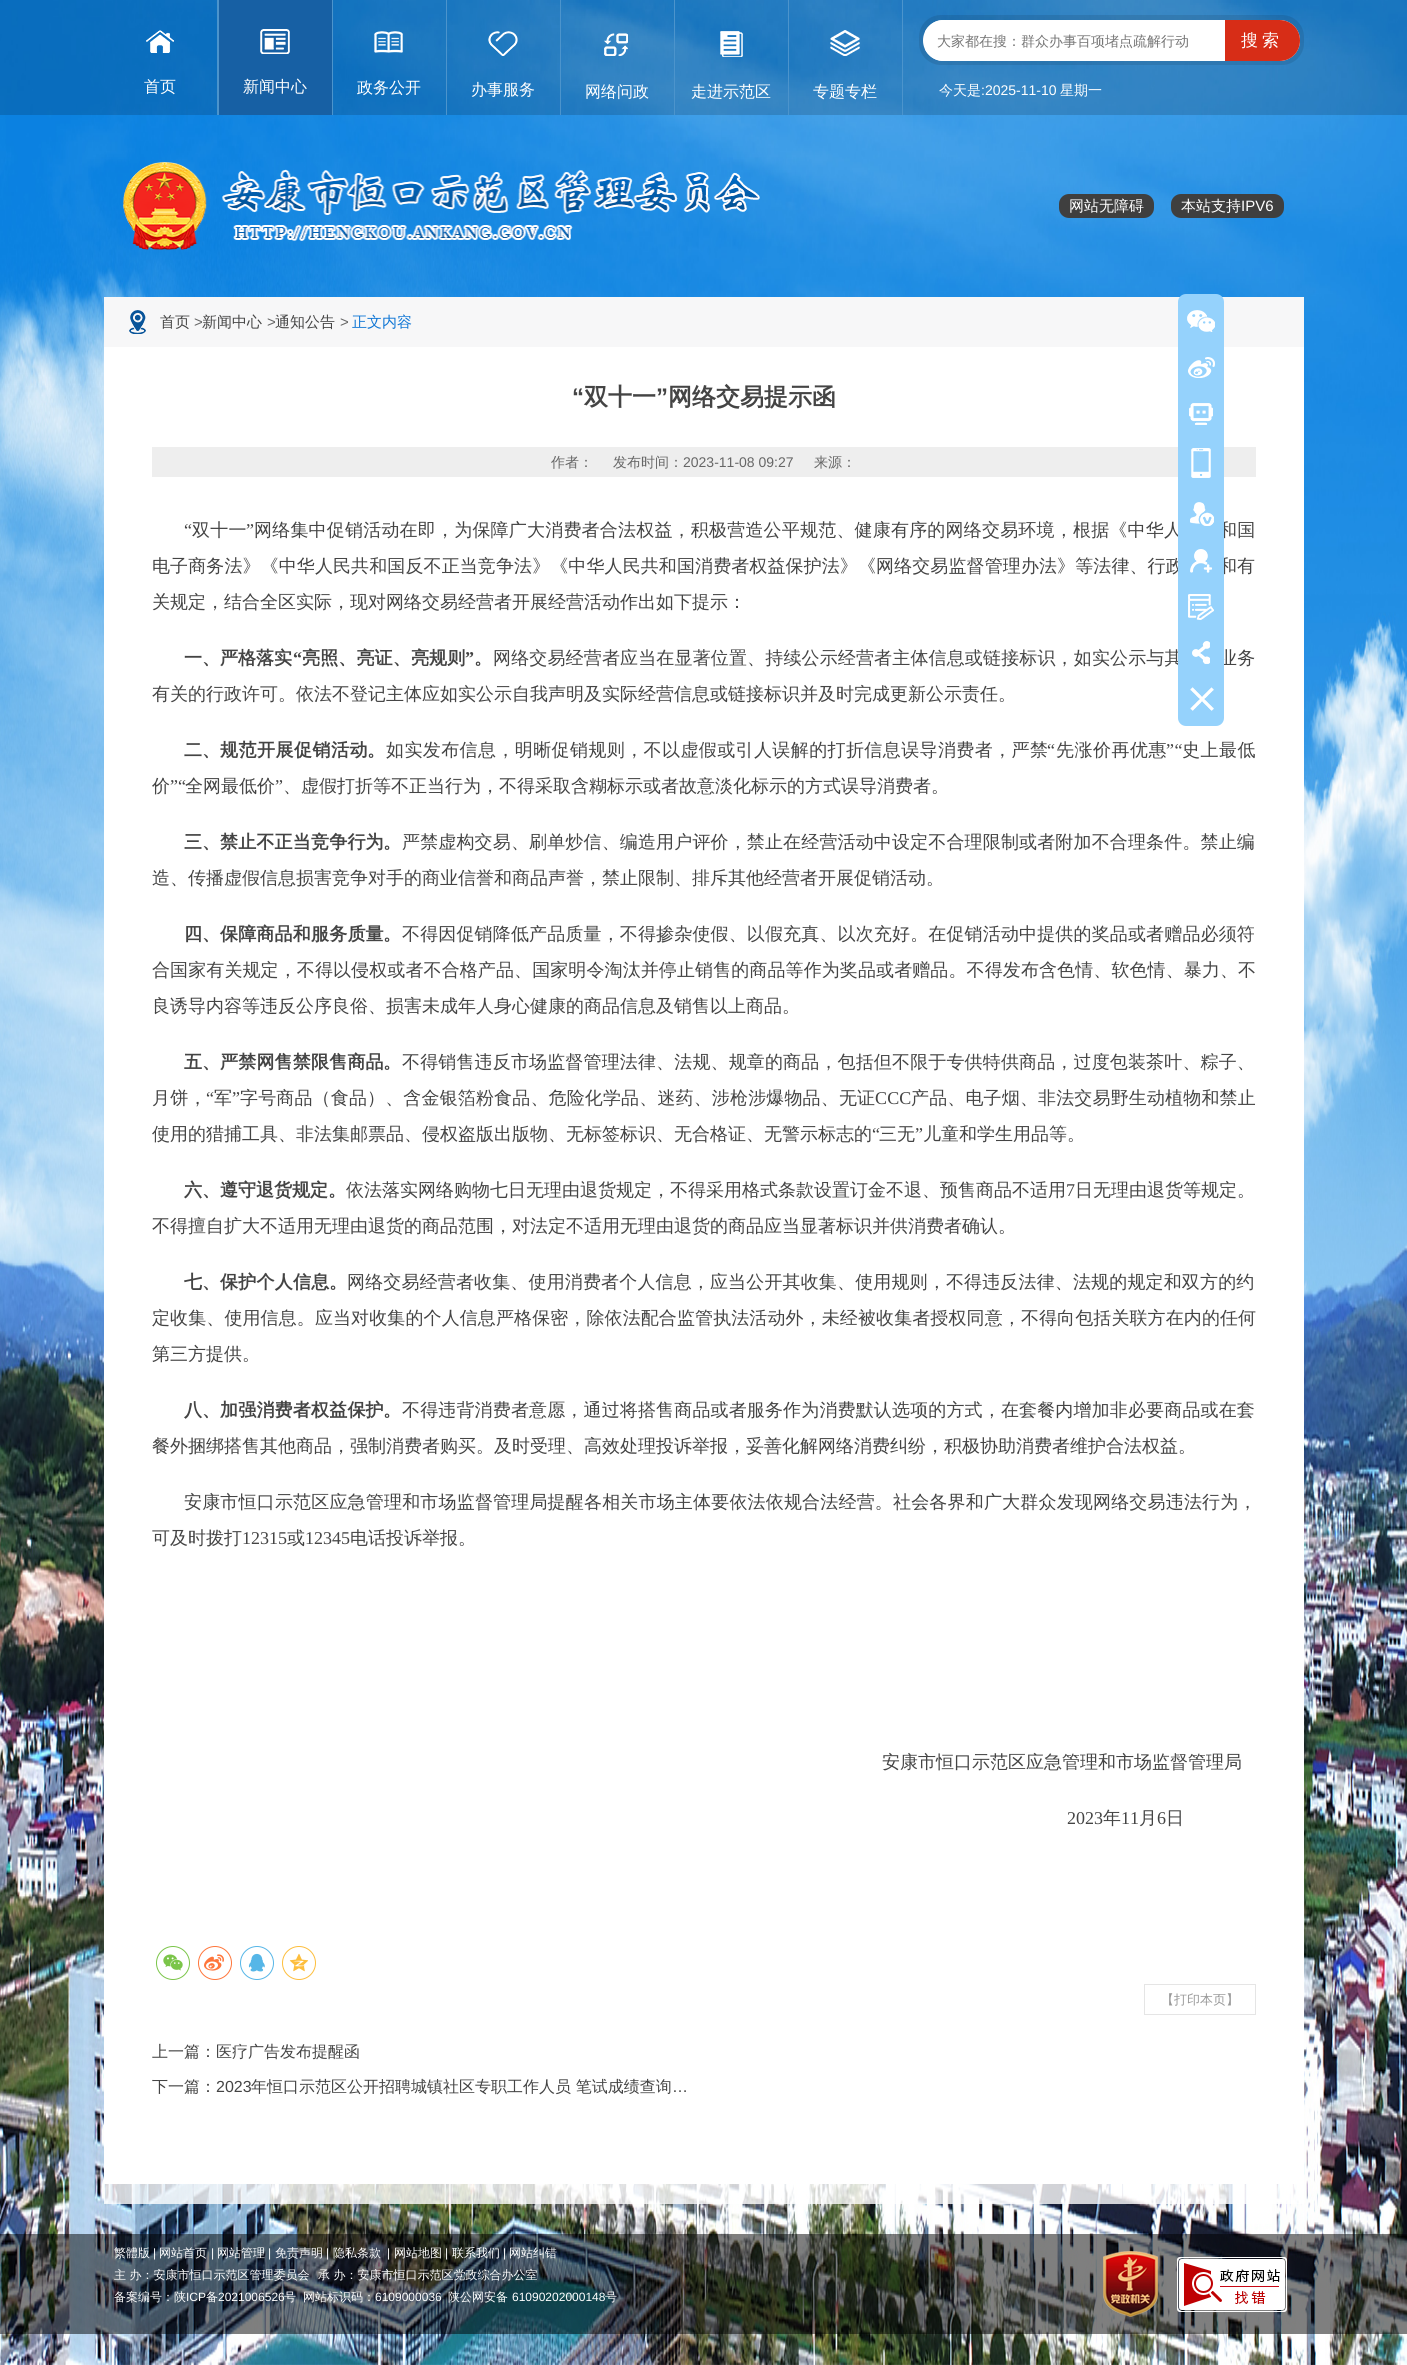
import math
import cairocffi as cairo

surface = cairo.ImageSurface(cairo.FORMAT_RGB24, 1407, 2365)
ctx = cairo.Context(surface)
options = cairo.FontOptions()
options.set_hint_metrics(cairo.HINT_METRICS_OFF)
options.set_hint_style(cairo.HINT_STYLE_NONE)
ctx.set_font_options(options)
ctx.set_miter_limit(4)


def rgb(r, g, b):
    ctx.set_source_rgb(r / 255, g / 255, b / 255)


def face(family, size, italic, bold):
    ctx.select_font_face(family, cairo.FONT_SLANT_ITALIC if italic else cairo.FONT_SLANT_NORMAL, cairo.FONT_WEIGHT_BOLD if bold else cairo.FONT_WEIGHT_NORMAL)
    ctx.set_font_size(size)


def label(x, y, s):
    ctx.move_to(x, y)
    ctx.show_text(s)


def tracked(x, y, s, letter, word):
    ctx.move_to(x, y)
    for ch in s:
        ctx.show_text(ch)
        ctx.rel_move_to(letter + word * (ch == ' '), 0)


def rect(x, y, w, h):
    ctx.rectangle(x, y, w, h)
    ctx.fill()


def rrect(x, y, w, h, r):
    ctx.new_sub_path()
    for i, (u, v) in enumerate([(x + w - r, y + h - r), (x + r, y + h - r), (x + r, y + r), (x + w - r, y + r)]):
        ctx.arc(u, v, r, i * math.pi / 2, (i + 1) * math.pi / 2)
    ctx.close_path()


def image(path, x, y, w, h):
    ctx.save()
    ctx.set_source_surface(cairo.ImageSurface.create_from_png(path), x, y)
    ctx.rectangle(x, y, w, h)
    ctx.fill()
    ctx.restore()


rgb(255, 255, 255)
ctx.paint()
image('image0.png', 0, 0, 1407, 2365)
ctx.set_source_rgba(0, 0, 0, 0.16)
rect(0, 0, 1407, 115)
rgb(76, 148, 204)
rect(217, 0, 2, 115)
image('image1.png', 146, 30, 28, 23)
face('WenQuanYi Zen Hei Medium', 16, 0, 0)
rgb(255, 255, 255)
label(144, 92, '首页')
rgb(23, 96, 164)
rect(219, 0, 113, 115)
rgb(76, 148, 204)
rect(332, 0, 1, 115)
image('image2.png', 260, 29, 30, 25)
rgb(255, 255, 255)
label(243, 92, '新闻中心')
rgb(76, 148, 204)
rect(446, 0, 1, 115)
image('image3.png', 374, 31, 29, 22)
rgb(255, 255, 255)
label(357, 93, '政务公开')
rgb(76, 148, 204)
rect(560, 0, 1, 115)
image('image4.png', 488, 31, 30, 25)
rgb(255, 255, 255)
label(471, 95, '办事服务')
rgb(76, 148, 204)
rect(674, 0, 1, 115)
image('image5.png', 604, 33, 24, 23)
rgb(255, 255, 255)
label(585, 97, '网络问政')
rgb(76, 148, 204)
rect(788, 0, 1, 115)
image('image6.png', 720, 31, 23, 26)
rgb(255, 255, 255)
label(691, 97, '走进示范区')
rgb(76, 148, 204)
rect(902, 0, 1, 115)
image('image7.png', 830, 30, 30, 26)
rgb(255, 255, 255)
label(813, 97, '专题专栏')
ctx.set_source_rgba(0, 0, 0, 0.1)
rrect(919, 15, 385, 50, 22)
ctx.fill()
rgb(255, 255, 255)
rrect(923, 20, 377, 41, 20.5)
ctx.fill()
ctx.save()
rrect(923, 20, 377, 41, 20.5)
ctx.clip()
rect(925, 20, 298, 41)
ctx.restore()
face('WenQuanYi Zen Hei Medium', 14, 0, 0)
rgb(117, 117, 117)
label(937, 46, '大家都在搜：群众办事百项堵点疏解行动')
rgb(215, 45, 23)
ctx.new_path()
ctx.move_to(1225, 20)
ctx.line_to(1279.5, 20)
ctx.curve_to(1291, 20, 1300, 29, 1300, 40.5)
ctx.curve_to(1300, 52, 1291, 61, 1279.5, 61)
ctx.line_to(1225, 61)
ctx.close_path()
ctx.fill()
face('WenQuanYi Zen Hei Medium', 17, 0, 0)
rgb(255, 255, 255)
tracked(1241, 46, '搜索', 4, 0)
face('WenQuanYi Zen Hei Medium', 14, 0, 0)
label(939, 95, '今天是')
face('Liberation Sans', 14, 0, 0)
label(981, 95, ':2025-11-10')
face('WenQuanYi Zen Hei Medium', 14, 0, 0)
label(1060, 95, '星期一')
image('image8.png', 123, 162, 637, 88)
rgb(63, 63, 63)
rrect(1059, 194, 95, 24, 10)
ctx.fill()
face('WenQuanYi Zen Hei Medium', 15, 0, 0)
rgb(255, 255, 255)
label(1069, 211, '网站无障碍')
rgb(63, 63, 63)
rrect(1171, 194, 113, 24, 10)
ctx.fill()
rgb(255, 255, 255)
label(1181, 211, '本站支持')
face('Liberation Sans', 15, 0, 0)
label(1241, 211, 'IPV6')
rect(104, 347, 1200, 1837)
rgb(247, 247, 248)
rect(104, 297, 1200, 50)
image('image9.png', 129, 310, 17, 24)
face('WenQuanYi Zen Hei Medium', 15, 0, 0)
rgb(68, 68, 68)
label(160, 327, '首页')
face('Liberation Sans', 15, 0, 0)
rgb(102, 102, 102)
label(194, 327, '>')
face('WenQuanYi Zen Hei Medium', 15, 0, 0)
rgb(68, 68, 68)
label(202, 327, '新闻中心')
face('Liberation Sans', 15, 0, 0)
rgb(102, 102, 102)
label(267, 327, '>')
face('WenQuanYi Zen Hei Medium', 15, 0, 0)
rgb(68, 68, 68)
label(275, 327, '通知公告')
face('Liberation Sans', 15, 0, 0)
rgb(102, 102, 102)
label(340, 327, '>')
face('WenQuanYi Zen Hei Medium', 15, 0, 0)
rgb(15, 118, 213)
label(352, 327, '正文内容')
rgb(238, 238, 238)
rect(152, 447, 1104, 30)
face('WenQuanYi Zen Hei Medium', 18, 0, 0)
rgb(68, 68, 68)
tracked(254, 536, '网络集中促销活动在即，为保障广大消费者合法权益，积极营造公平规范、健康有序的网络交易环境，根据《中华人', 0.2, 0)
tracked(1219, 536, '和国', 0.2, 0)
tracked(152, 572, '电子商务法》《中华人民共和国反不正当竞争法》《中华人民共和国消费者权益保护法》《网络交易监督管理办法》等法律、行政', 0.1, 0)
tracked(1219, 572, '和有', 0.1, 0)
tracked(493, 664, '网络交易经营者应当在显著位置、持续公示经营者主体信息或链接标识，如实公示与其', 0.15, 0)
tracked(1219, 664, '业务', 0.15, 0)
rgb(149, 210, 252)
rrect(1178, 294, 46, 432, 8)
ctx.fill()
image('image10.png', 1187, 310, 28, 22)
image('image11.png', 1188, 357, 27, 21)
image('image12.png', 1189, 403, 24, 22)
image('image13.png', 1191, 448, 20, 30)
image('image14.png', 1190, 502, 24, 24)
image('image15.png', 1190, 549, 22, 24)
image('image16.png', 1188, 594, 26, 26)
image('image17.png', 1192, 641, 18, 23)
image('image18.png', 1190, 687, 24, 24)
face('Liberation Sans', 24, 0, 1)
rgb(68, 68, 68)
label(572, 405, '“')
face('WenQuanYi Zen Hei', 24, 0, 1)
label(584, 405, '双十一')
face('Liberation Sans', 24, 0, 1)
label(656, 405, '”')
face('WenQuanYi Zen Hei', 24, 0, 1)
label(668, 405, '网络交易提示函')
face('WenQuanYi Zen Hei Medium', 14, 0, 0)
rgb(102, 102, 102)
label(551, 467, '作者：')
label(613, 467, '发布时间：')
face('Liberation Sans', 14, 0, 0)
label(683, 467, '2023-11-08 09:27')
face('WenQuanYi Zen Hei Medium', 14, 0, 0)
label(814, 467, '来源：')
face('Liberation Serif', 18, 0, 0)
rgb(68, 68, 68)
tracked(184, 536, '“', 0.2, 0)
face('WenQuanYi Zen Hei Medium', 18, 0, 0)
tracked(192, 536, '双十一', 0.2, 0)
face('Liberation Serif', 18, 0, 0)
tracked(246, 536, '”', 0.2, 0)
face('WenQuanYi Zen Hei Medium', 18, 0, 0)
label(152, 608, '关规定，结合全区实际，现对网络交易经营者开展经营活动作出如下提示：')
face('WenQuanYi Zen Hei', 18, 0, 1)
label(220, 664, '严格落实')
face('Liberation Serif', 18, 0, 1)
tracked(293, 664, '“', 0.15, 0)
face('WenQuanYi Zen Hei', 18, 0, 1)
tracked(302, 664, '亮照、亮证、亮规则', 0.15, 0)
face('Liberation Serif', 18, 0, 1)
tracked(465, 664, '”', 0.15, 0)
face('WenQuanYi Zen Hei', 18, 0, 1)
label(184, 664, '一、')
label(474, 664, '。')
face('WenQuanYi Zen Hei Medium', 18, 0, 0)
label(152, 700, '有关的行政许可。依法不登记主体应如实公示自我声明及实际经营信息或链接标识并及时完成更新公示责任。')
face('WenQuanYi Zen Hei', 18, 0, 1)
label(184, 756, '二、')
tracked(220, 756, '规范开展促销活动', 0.5, 0)
face('WenQuanYi Zen Hei Medium', 18, 0, 0)
tracked(386, 756, '如实发布信息，明晰促销规则，不以虚假或引人误解的打折信息误导消费者，严禁', 0.4, 0)
face('Liberation Serif', 18, 0, 0)
tracked(1047, 756, '“', 0.5, 0)
face('WenQuanYi Zen Hei Medium', 18, 0, 0)
tracked(1056, 756, '先涨价再优惠', 0.5, 0)
face('Liberation Serif', 18, 0, 0)
tracked(1166, 756, '”“', 0.5, 0)
face('WenQuanYi Zen Hei Medium', 18, 0, 0)
tracked(1182, 756, '史上最低', 0.5, 0)
face('WenQuanYi Zen Hei', 18, 0, 1)
label(367, 756, '。')
face('WenQuanYi Zen Hei Medium', 18, 0, 0)
label(152, 792, '价')
face('Liberation Serif', 18, 0, 0)
label(170, 792, '”“')
face('WenQuanYi Zen Hei Medium', 18, 0, 0)
label(185, 792, '全网最低价')
face('Liberation Serif', 18, 0, 0)
label(275, 792, '”')
face('WenQuanYi Zen Hei Medium', 18, 0, 0)
label(283, 792, '、虚假打折等不正当行为，不得采取含糊标示或者故意淡化标示的方式误导消费者。')
face('WenQuanYi Zen Hei', 18, 0, 1)
label(184, 848, '三、')
tracked(220, 848, '禁止不正当竞争行为', 0.2, 0)
label(383, 848, '。')
face('WenQuanYi Zen Hei Medium', 18, 0, 0)
tracked(402, 848, '严禁虚构交易、刷单炒信、编造用户评价，禁止在经营活动中设定不合理限制或者附加不合理条件。禁止编', 0.15, 0)
label(152, 884, '造、传播虚假信息损害竞争对手的商业信誉和商品声誉，禁止限制、排斥其他经营者开展促销活动。')
face('WenQuanYi Zen Hei', 18, 0, 1)
label(184, 940, '四、')
tracked(220, 940, '保障商品和服务质量', 0.2, 0)
label(383, 940, '。')
face('WenQuanYi Zen Hei Medium', 18, 0, 0)
tracked(402, 940, '不得因促销降低产品质量，不得掺杂使假、以假充真、以次充好。在促销活动中提供的奖品或者赠品必须符', 0.15, 0)
tracked(152, 976, '合国家有关规定，不得以侵权或者不合格产品、国家明令淘汰并停止销售的商品等作为奖品或者赠品。不得发布含色情、软色情、暴力、不', 0.1, 0)
label(152, 1012, '良诱导内容等违反公序良俗、损害未成年人身心健康的商品信息及销售以上商品。')
face('WenQuanYi Zen Hei', 18, 0, 1)
label(184, 1068, '五、')
tracked(220, 1068, '严禁网售禁限售商品', 0.2, 0)
label(383, 1068, '。')
face('WenQuanYi Zen Hei Medium', 18, 0, 0)
tracked(402, 1068, '不得销售违反市场监督管理法律、法规、规章的商品，包括但不限于专供特供商品，过度包装茶叶、粽子、', 0.15, 0)
tracked(152, 1104, '月饼，', 0.2, 0)
face('Liberation Serif', 18, 0, 0)
tracked(206, 1104, '“', 0.15, 0)
face('WenQuanYi Zen Hei Medium', 18, 0, 0)
tracked(214, 1104, '军', 0.15, 0)
face('Liberation Serif', 18, 0, 0)
tracked(232, 1104, '”', 0.15, 0)
face('WenQuanYi Zen Hei Medium', 18, 0, 0)
tracked(240, 1104, '字号商品（食品）、含金银箔粉食品、危险化学品、迷药、涉枪涉爆物品、无证', 0.15, 0)
face('Liberation Serif', 18, 0, 0)
tracked(875, 1104, 'CCC', 0.15, 0)
face('WenQuanYi Zen Hei Medium', 18, 0, 0)
tracked(911, 1104, '产品、电子烟、非法交易野生动植物和禁止', 0.15, 0)
label(152, 1140, '使用的猎捕工具、非法集邮票品、侵权盗版出版物、无标签标识、无合格证、无警示标志的')
face('Liberation Serif', 18, 0, 0)
label(872, 1140, '“')
face('WenQuanYi Zen Hei Medium', 18, 0, 0)
label(879, 1140, '三无')
face('Liberation Serif', 18, 0, 0)
label(915, 1140, '”')
face('WenQuanYi Zen Hei Medium', 18, 0, 0)
label(923, 1140, '儿童和学生用品等。')
face('WenQuanYi Zen Hei', 18, 0, 1)
label(184, 1196, '六、遵守退货规定。')
face('WenQuanYi Zen Hei Medium', 18, 0, 0)
label(346, 1196, '依法落实网络购物七日无理由退货规定，不得采用格式条款设置订金不退、预售商品不适用')
face('Liberation Serif', 18, 0, 0)
label(1066, 1196, '7')
face('WenQuanYi Zen Hei Medium', 18, 0, 0)
label(1075, 1196, '日无理由退货等规定。')
label(152, 1232, '不得擅自扩大不适用无理由退货的商品范围，对法定不适用无理由退货的商品应当显著标识并供消费者确认。')
face('WenQuanYi Zen Hei', 18, 0, 1)
label(184, 1288, '七、')
tracked(220, 1288, '保护个人信息', 0.25, 0)
label(329, 1288, '。')
face('WenQuanYi Zen Hei Medium', 18, 0, 0)
tracked(347, 1288, '网络交易经营者收集、使用消费者个人信息，应当公开其收集、使用规则，不得违反法律、法规的规定和双方的约', 0.15, 0)
tracked(152, 1324, '定收集、使用信息。应当对收集的个人信息严格保密，除依法配合监管执法活动外，未经被收集者授权同意，不得向包括关联方在内的任何', 0.1, 0)
label(152, 1360, '第三方提供。')
face('WenQuanYi Zen Hei', 18, 0, 1)
label(184, 1416, '八、')
tracked(220, 1416, '加强消费者权益保护', 0.2, 0)
label(383, 1416, '。')
face('WenQuanYi Zen Hei Medium', 18, 0, 0)
tracked(402, 1416, '不得违背消费者意愿，通过将搭售商品或者服务作为消费默认选项的方式，在套餐内增加非必要商品或在套', 0.15, 0)
label(152, 1452, '餐外捆绑搭售其他商品，强制消费者购买。及时受理、高效处理投诉举报，妥善化解网络消费纠纷，积极协助消费者维护合法权益。')
tracked(184, 1508, '安康市恒口示范区应急管理和市场监督管理局提醒各相关市场主体要依法依规合法经营。社会各界和广大群众发现网络交易违法行为，', 0.18, 0)
label(152, 1544, '可及时拨打')
face('Liberation Serif', 18, 0, 0)
label(242, 1544, '12315')
face('WenQuanYi Zen Hei Medium', 18, 0, 0)
label(287, 1544, '或')
face('Liberation Serif', 18, 0, 0)
label(305, 1544, '12345')
face('WenQuanYi Zen Hei Medium', 18, 0, 0)
label(350, 1544, '电话投诉举报。')
label(882, 1768, '安康市恒口示范区应急管理和市场监督管理局')
face('Liberation Serif', 18, 0, 0)
label(1067, 1824, '2023')
face('WenQuanYi Zen Hei Medium', 18, 0, 0)
label(1103, 1824, '年')
face('Liberation Serif', 18, 0, 0)
label(1121, 1824, '11')
face('WenQuanYi Zen Hei Medium', 18, 0, 0)
label(1139, 1824, '月')
face('Liberation Serif', 18, 0, 0)
label(1157, 1824, '6')
face('WenQuanYi Zen Hei Medium', 18, 0, 0)
label(1166, 1824, '日')
ctx.new_path()
ctx.arc(173, 1963, 16.5, 0, 2 * math.pi)
rgb(123, 197, 73)
ctx.set_line_width(1)
ctx.stroke()
image('image19.png', 163, 1954, 20, 17)
ctx.arc(215, 1963, 16.5, 0, 2 * math.pi)
rgb(255, 118, 59)
ctx.stroke()
image('image20.png', 204, 1954, 20, 17)
ctx.arc(257, 1963, 16.5, 0, 2 * math.pi)
rgb(86, 182, 231)
ctx.stroke()
image('image21.png', 248, 1953, 17, 19)
ctx.arc(299, 1963, 16.5, 0, 2 * math.pi)
rgb(253, 190, 61)
ctx.stroke()
image('image22.png', 289, 1953, 20, 19)
ctx.rectangle(1144.5, 1984.5, 111, 30)
rgb(229, 229, 229)
ctx.stroke()
face('WenQuanYi Zen Hei Medium', 13, 0, 0)
rgb(153, 153, 153)
label(1161, 2004, '【打印本页】')
face('WenQuanYi Zen Hei Medium', 16, 0, 0)
rgb(68, 68, 68)
label(152, 2057, '上一篇：医疗广告发布提醒函')
label(152, 2092, '下一篇：')
face('Liberation Sans', 16, 0, 0)
label(216, 2092, '2023')
face('WenQuanYi Zen Hei Medium', 16, 0, 0)
label(251, 2092, '年恒口示范区公开招聘城镇社区专职工作人员 笔试成绩查询')
face('Liberation Sans', 16, 0, 0)
label(672, 2092, '…')
ctx.set_source_rgba(1, 1, 1, 0.8)
rect(104, 2184, 1200, 20)
ctx.set_source_rgba(0, 0, 0, 0.5)
rect(0, 2234, 1407, 100)
face('WenQuanYi Zen Hei Medium', 12, 0, 0)
rgb(255, 255, 255)
label(114, 2257, '繁體版')
face('Liberation Sans', 12, 0, 0)
label(153, 2257, '|')
face('WenQuanYi Zen Hei Medium', 12, 0, 0)
label(159, 2257, '网站首页')
face('Liberation Sans', 12, 0, 0)
label(211, 2257, '|')
face('WenQuanYi Zen Hei Medium', 12, 0, 0)
label(217, 2257, '网站管理')
face('Liberation Sans', 12, 0, 0)
label(268, 2257, '|')
face('WenQuanYi Zen Hei Medium', 12, 0, 0)
label(275, 2257, '免责声明')
face('Liberation Sans', 12, 0, 0)
label(326, 2257, '|')
face('WenQuanYi Zen Hei Medium', 12, 0, 0)
label(333, 2257, '隐私条款')
face('Liberation Sans', 12, 0, 0)
label(387, 2257, '|')
face('WenQuanYi Zen Hei Medium', 12, 0, 0)
label(394, 2257, '网站地图')
face('Liberation Sans', 12, 0, 0)
label(445, 2257, '|')
face('WenQuanYi Zen Hei Medium', 12, 0, 0)
label(452, 2257, '联系我们')
face('Liberation Sans', 12, 0, 0)
label(503, 2257, '|')
face('WenQuanYi Zen Hei Medium', 12, 0, 0)
label(509, 2257, '网站纠错')
label(114, 2279, '主 办：安康市恒口示范区管理委员会')
label(318, 2279, '承 办：安康市恒口示范区党政综合办公室')
label(114, 2301, '备案编号：陕')
face('Liberation Sans', 12, 0, 0)
label(186, 2301, 'ICP')
face('WenQuanYi Zen Hei Medium', 12, 0, 0)
label(206, 2301, '备')
face('Liberation Sans', 12, 0, 0)
label(218, 2301, '2021006526')
face('WenQuanYi Zen Hei Medium', 12, 0, 0)
label(284, 2301, '号')
label(303, 2301, '网站标识码：')
face('Liberation Sans', 12, 0, 0)
label(375, 2301, '6109000036')
face('WenQuanYi Zen Hei Medium', 12, 0, 0)
label(448, 2301, '陕公网安备')
face('Liberation Sans', 12, 0, 0)
label(512, 2301, '61090202000148')
face('WenQuanYi Zen Hei Medium', 12, 0, 0)
label(605, 2301, '号')
image('image23.png', 1103, 2251, 55, 66)
image('image24.png', 1177, 2257, 110, 55)
surface.write_to_png('render.png')
